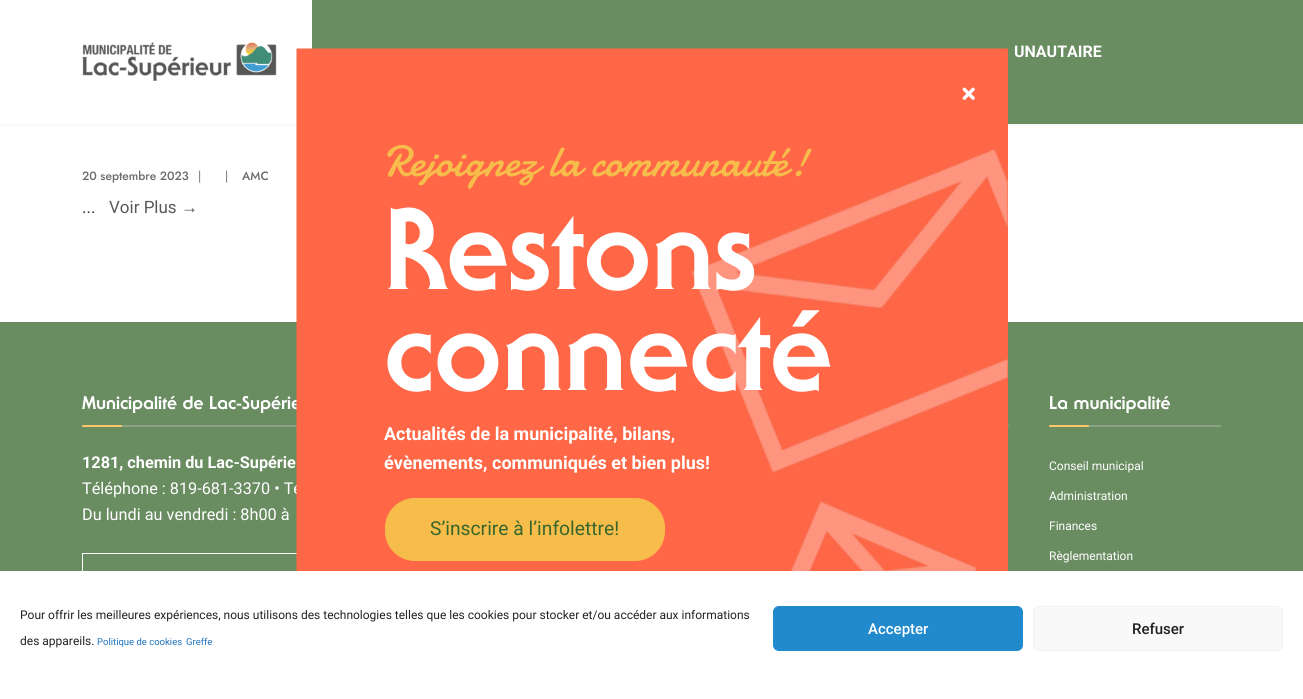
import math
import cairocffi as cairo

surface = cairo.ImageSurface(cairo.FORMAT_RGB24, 1303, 699)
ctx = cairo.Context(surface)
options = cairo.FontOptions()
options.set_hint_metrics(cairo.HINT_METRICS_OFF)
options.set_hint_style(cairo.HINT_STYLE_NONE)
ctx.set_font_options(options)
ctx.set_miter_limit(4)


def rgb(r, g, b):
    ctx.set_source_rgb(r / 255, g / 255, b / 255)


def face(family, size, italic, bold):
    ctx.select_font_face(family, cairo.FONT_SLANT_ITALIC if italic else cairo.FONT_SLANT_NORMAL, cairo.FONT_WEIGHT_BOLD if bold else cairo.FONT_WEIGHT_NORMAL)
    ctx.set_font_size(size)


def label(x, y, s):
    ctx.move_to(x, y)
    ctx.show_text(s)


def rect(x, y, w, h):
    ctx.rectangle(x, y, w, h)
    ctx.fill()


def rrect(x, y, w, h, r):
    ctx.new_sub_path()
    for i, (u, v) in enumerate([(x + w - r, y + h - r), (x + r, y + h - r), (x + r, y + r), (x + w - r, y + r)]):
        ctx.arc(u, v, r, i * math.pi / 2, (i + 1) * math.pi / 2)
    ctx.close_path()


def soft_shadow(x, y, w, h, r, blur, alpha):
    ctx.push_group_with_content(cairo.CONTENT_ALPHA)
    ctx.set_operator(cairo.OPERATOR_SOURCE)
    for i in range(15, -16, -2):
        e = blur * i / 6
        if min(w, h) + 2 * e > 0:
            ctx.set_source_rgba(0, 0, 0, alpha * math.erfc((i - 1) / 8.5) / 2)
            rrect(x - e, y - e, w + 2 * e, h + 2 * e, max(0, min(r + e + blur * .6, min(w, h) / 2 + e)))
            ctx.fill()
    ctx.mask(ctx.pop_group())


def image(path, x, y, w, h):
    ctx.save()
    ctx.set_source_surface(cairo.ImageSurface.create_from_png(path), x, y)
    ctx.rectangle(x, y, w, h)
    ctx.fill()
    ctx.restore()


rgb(255, 255, 255)
ctx.paint()
rgb(64, 64, 64)
soft_shadow(0, 0, 1303, 124, 0, 2, 0.1)
rgb(105, 140, 97)
rect(312, 0, 991, 124)
rgb(255, 255, 255)
rect(0, 0, 312, 124)
image('image0.png', 82, 42, 195, 39)
face('Roboto', 16, 0, 1)
label(1014, 57, 'UNAUTAIRE')
face('Jost Medium', 12, 0, 0)
rgb(106, 106, 106)
label(82, 180, '20 septembre 2023')
face('Jost', 12, 0, 0)
label(198, 180, '|')
label(225, 180, '|')
face('Jost Medium', 12, 0, 0)
label(242, 180, 'AMC')
face('Roboto', 17, 0, 0)
rgb(64, 64, 64)
label(82, 213, '...')
rgb(89, 89, 89)
label(109, 213, 'Voir Plus')
face('Liberation Serif', 17, 0, 0)
label(181, 213, '→')
rgb(105, 140, 97)
rect(0, 322, 1303, 249)
face('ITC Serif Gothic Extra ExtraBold', 18, 0, 0)
rgb(255, 255, 255)
label(82, 409, 'Municipalité de Lac-Supérie')
rgb(139, 164, 133)
rect(120, 425, 177, 2)
rgb(255, 199, 108)
rrect(82, 425, 40, 2, 1)
ctx.fill()
face('Roboto', 16.25, 0, 1)
rgb(255, 255, 255)
label(82, 468, '1281, chemin du Lac-Supérie')
face('Roboto', 16.25, 0, 0)
label(82, 494, 'Téléphone : 819-681-3370 • Té')
label(82, 520, 'Du lundi au vendredi : 8h00 à')
ctx.rectangle(82.5, 553.5, 461, 49)
ctx.set_line_width(1)
ctx.stroke()
rgb(139, 164, 133)
rrect(875, 425, 134, 2, 1)
ctx.fill()
face('ITC Serif Gothic Extra ExtraBold', 18, 0, 0)
rgb(255, 255, 255)
label(1049, 409, 'La municipalité')
rgb(139, 164, 133)
rrect(1087, 425, 134, 2, 1)
ctx.fill()
rgb(255, 199, 108)
rrect(1049, 425, 40, 2, 1)
ctx.fill()
face('Roboto', 12, 0, 0)
rgb(255, 255, 255)
label(1049, 470, 'Conseil municipal')
label(1049, 500, 'Administration')
label(1049, 530, 'Finances')
label(1049, 560, 'Règlementation')
rgb(255, 103, 71)
rect(1007, 49, 1, 522)
image('image1.png', 296, 48, 712, 523)
image('image2.png', 962, 87, 13, 13)
face('Damion', 44, 0, 0)
rgb(247, 189, 74)
label(384, 176, 'Rejoignez la communauté!')
face('ITC Serif Gothic Extra ExtraBold', 112, 0, 0)
rgb(255, 255, 255)
label(384, 289, 'Restons')
label(384, 390, 'connecté')
face('Roboto', 18, 0, 1)
label(384, 440, 'Actualités de la municipalité, bilans,')
label(384, 469, 'évènements, communiqués et bien plus!')
rgb(247, 189, 74)
rrect(385.5, 498.5, 279, 62, 29.5)
ctx.fill_preserve()
ctx.stroke()
face('Roboto', 19.25, 0, 0)
rgb(55, 102, 44)
label(430, 535, 'S’inscrire à l’infolettre!')
face('Roboto', 12, 0, 0)
rgb(34, 34, 34)
label(20, 619, 'Pour offrir les meilleures expériences, nous utilisons des technologies telles que les cookies pour stocker et/ou accéder aux informations')
label(20, 645, 'des appareils.')
face('Roboto', 9.5, 0, 0)
rgb(30, 115, 190)
label(97, 645, 'Politique de cookies')
label(186, 645, 'Greffe')
rgb(33, 138, 204)
rrect(773.5, 606.5, 249, 44, 5.5)
ctx.fill_preserve()
ctx.stroke()
face('Roboto Medium', 15, 0, 0)
rgb(255, 255, 255)
label(868, 634, 'Accepter')
rgb(249, 249, 249)
rrect(1033.5, 606.5, 249, 44, 5.5)
ctx.fill_preserve()
rgb(242, 242, 242)
ctx.stroke()
rgb(34, 34, 34)
label(1132, 634, 'Refuser')
surface.write_to_png('render.png')
